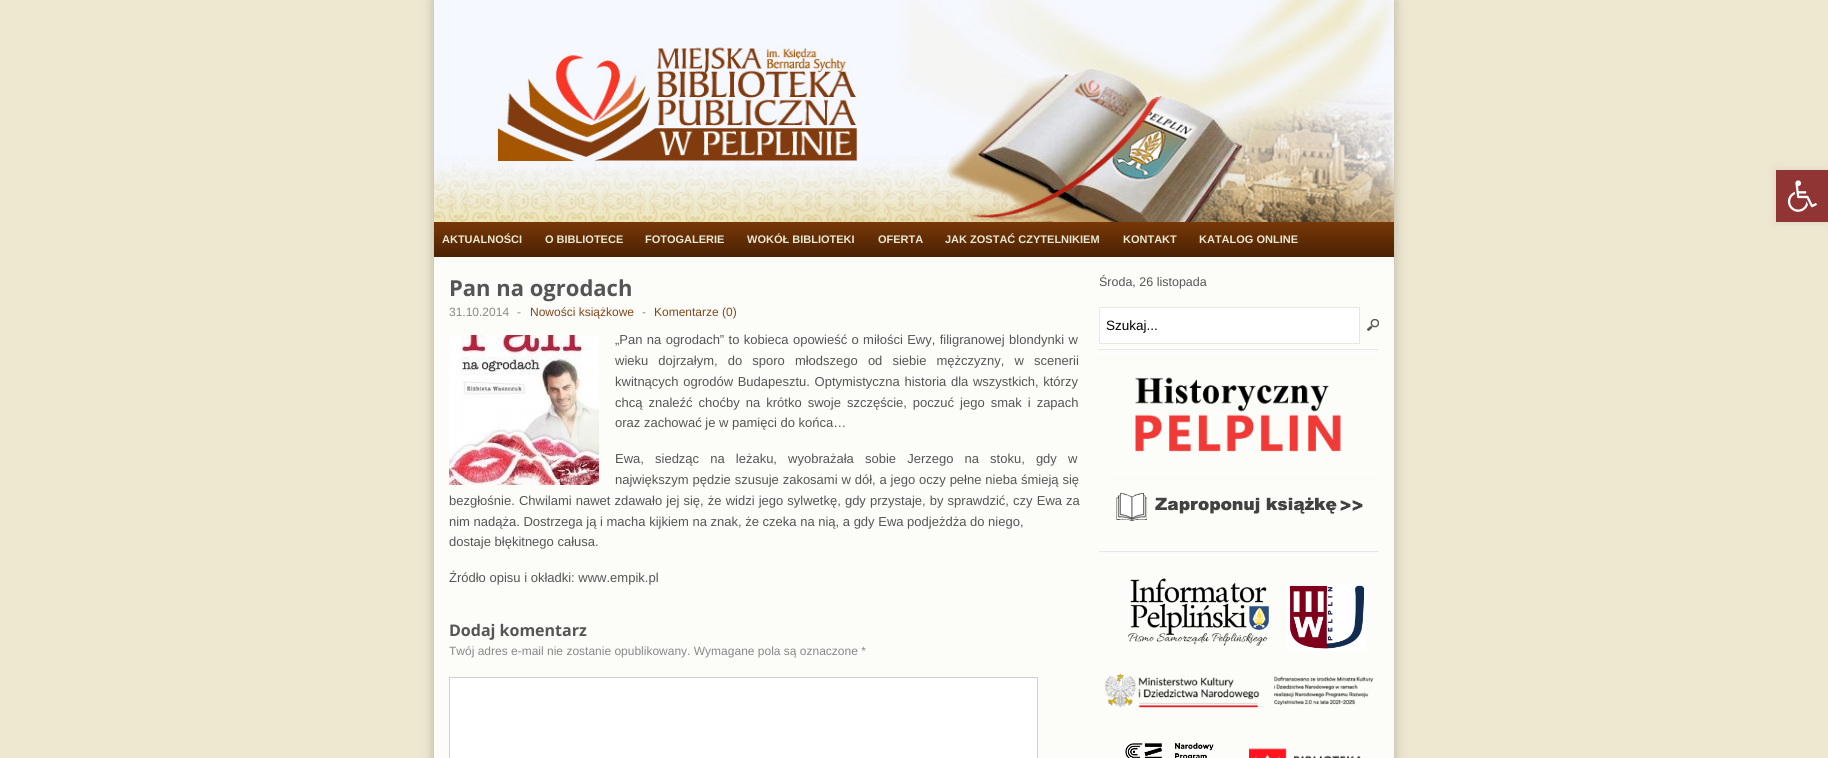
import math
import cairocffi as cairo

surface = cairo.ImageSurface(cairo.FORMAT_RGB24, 1828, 758)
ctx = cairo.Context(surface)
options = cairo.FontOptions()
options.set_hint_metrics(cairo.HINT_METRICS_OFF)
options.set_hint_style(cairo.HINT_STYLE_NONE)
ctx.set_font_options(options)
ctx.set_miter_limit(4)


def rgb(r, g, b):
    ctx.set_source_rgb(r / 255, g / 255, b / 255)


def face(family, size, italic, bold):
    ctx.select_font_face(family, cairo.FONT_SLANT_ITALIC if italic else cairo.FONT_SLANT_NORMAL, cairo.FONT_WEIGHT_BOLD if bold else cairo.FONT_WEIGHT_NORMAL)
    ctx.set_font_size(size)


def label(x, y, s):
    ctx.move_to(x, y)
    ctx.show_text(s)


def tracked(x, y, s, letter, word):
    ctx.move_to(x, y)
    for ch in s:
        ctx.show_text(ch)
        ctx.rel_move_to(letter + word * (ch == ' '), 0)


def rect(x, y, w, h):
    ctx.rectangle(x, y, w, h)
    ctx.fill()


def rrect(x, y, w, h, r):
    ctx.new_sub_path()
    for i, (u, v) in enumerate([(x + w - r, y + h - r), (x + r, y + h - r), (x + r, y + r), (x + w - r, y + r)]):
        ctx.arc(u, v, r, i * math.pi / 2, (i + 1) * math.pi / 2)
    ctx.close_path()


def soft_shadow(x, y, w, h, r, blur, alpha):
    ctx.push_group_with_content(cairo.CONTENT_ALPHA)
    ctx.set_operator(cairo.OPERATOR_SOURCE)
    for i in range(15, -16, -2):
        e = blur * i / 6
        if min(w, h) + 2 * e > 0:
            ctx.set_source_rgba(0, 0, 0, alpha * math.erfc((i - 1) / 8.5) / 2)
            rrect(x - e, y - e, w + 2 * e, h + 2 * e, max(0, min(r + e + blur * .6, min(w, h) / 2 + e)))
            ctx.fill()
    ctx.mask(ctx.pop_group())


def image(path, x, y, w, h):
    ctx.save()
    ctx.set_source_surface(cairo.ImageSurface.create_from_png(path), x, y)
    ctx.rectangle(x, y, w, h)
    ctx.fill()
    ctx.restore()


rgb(239, 232, 209)
ctx.paint()
rgb(0, 0, 0)
soft_shadow(1776, 170, 52, 52, 0, 5, 0.1)
rgb(145, 52, 52)
rect(1776, 170, 52, 52)
image('image0.png', 1787, 180, 30, 32)
rgb(0, 0, 0)
soft_shadow(434, 0, 960, 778, 0, 6.5, 0.25)
image('image1.png', 434, 0, 960, 222)
gradient = cairo.LinearGradient(914, 222, 914, 257)
gradient.add_color_stop_rgba(0, 0.471, 0.216, 0.024, 1)
gradient.add_color_stop_rgba(1, 0.29, 0.133, 0.016, 1)
ctx.set_source(gradient)
rect(434, 222, 960, 35)
face('Liberation Sans', 11, 0, 1)
rgb(233, 232, 209)
label(442, 243, 'AKTUALNOŚCI')
label(545, 243, 'O BIBLIOTECE')
label(645, 243, 'FOTOGALERIE')
label(747, 243, 'WOKÓŁ BIBLIOTEKI')
label(878, 243, 'OFERTA')
label(945, 243, 'JAK ZOSTAĆ CZYTELNIKIEM')
label(1123, 243, 'KONTAKT')
label(1199, 243, 'KATALOG ONLINE')
rgb(252, 252, 248)
rect(434, 257, 960, 501)
face('Open Sans', 22, 0, 1)
rgb(85, 85, 85)
label(449, 296, 'Pan na ogrodach')
face('Liberation Sans', 12, 0, 0)
rgb(136, 136, 136)
label(449, 316, '31.10.2014')
label(517, 316, '-')
rgb(129, 70, 28)
label(530, 316, 'Nowości książkowe')
rgb(136, 136, 136)
label(642, 316, '-')
rgb(129, 70, 28)
label(654, 316, 'Komentarze (0)')
image('image2.png', 449, 335, 150, 150)
face('Liberation Sans', 13, 0, 0)
rgb(85, 85, 85)
tracked(615, 344, '„Pan na ogrodach” to kobieca opowieść o miłości Ewy, filigranowej blondynki w', 0, 0.75)
tracked(615, 365, 'wieku dojrzałym, do sporo młodszego od siebie mężczyzny, w scenerii', 0, 6.5)
tracked(615, 386, 'kwitnących ogrodów Budapesztu. Optymistyczna historia dla wszystkich, którzy', 0, 1)
tracked(615, 407, 'chcą znaleźć choćby na krótko swoje szczęście, poczuć jego smak i zapach', 0, 2.4)
label(615, 427, 'oraz zachować je w pamięci do końca…')
tracked(615, 463, 'Ewa, siedząc na leżaku, wyobrażała sobie Jerzego na stoku, gdy w', 0, 7.5)
tracked(615, 484, 'największym pędzie szusuje zakosami w dół, a jego oczy pełne nieba śmieją się', 0, 0.25)
tracked(449, 505, 'bezgłośnie. Chwilami nawet zdawało jej się, że widzi jego sylwetkę, gdy przystaje, by sprawdzić, czy Ewa za', 0, 0.5)
label(449, 526, 'nim nadąża. Dostrzega ją i macha kijkiem na znak, że czeka na nią, a gdy Ewa podjeżdża do niego,')
label(449, 546, 'dostaje błękitnego całusa.')
label(449, 582, 'Źródło opisu i okładki: www.empik.pl')
face('Open Sans', 16, 0, 1)
label(449, 636, 'Dodaj komentarz')
face('Liberation Sans', 12, 0, 0)
rgb(136, 136, 136)
label(449, 655, 'Twój adres e-mail nie zostanie opublikowany. Wymagane pola są oznaczone *')
rgb(255, 255, 255)
ctx.rectangle(449.5, 677.5, 588, 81)
ctx.fill_preserve()
rgb(207, 207, 207)
ctx.set_line_width(1)
ctx.stroke()
image('image3.png', 1099, 348, 280, 6)
face('Liberation Sans', 12.5, 0, 0)
rgb(85, 85, 85)
label(1099, 286, 'Środa, 26 listopada')
rgb(255, 255, 255)
ctx.rectangle(1099.5, 307.5, 260, 36)
ctx.fill_preserve()
rgb(231, 231, 231)
ctx.stroke()
face('Liberation Sans', 13.5, 0, 0)
rgb(0, 0, 0)
label(1106, 330, 'Szukaj...')
image('image4.png', 1367, 319, 12, 12)
image('image3.png', 1099, 550, 280, 6)
image('image5.png', 1135, 377, 206, 75)
image('image6.png', 1109, 472, 267, 50)
image('image7.png', 1128, 578, 141, 68)
image('image8.png', 1286, 584, 81, 67)
image('image9.png', 1105, 673, 269, 35)
image('image10.png', 1125, 743, 89, 15)
image('image11.png', 1249, 748, 112, 10)
surface.write_to_png('render.png')
